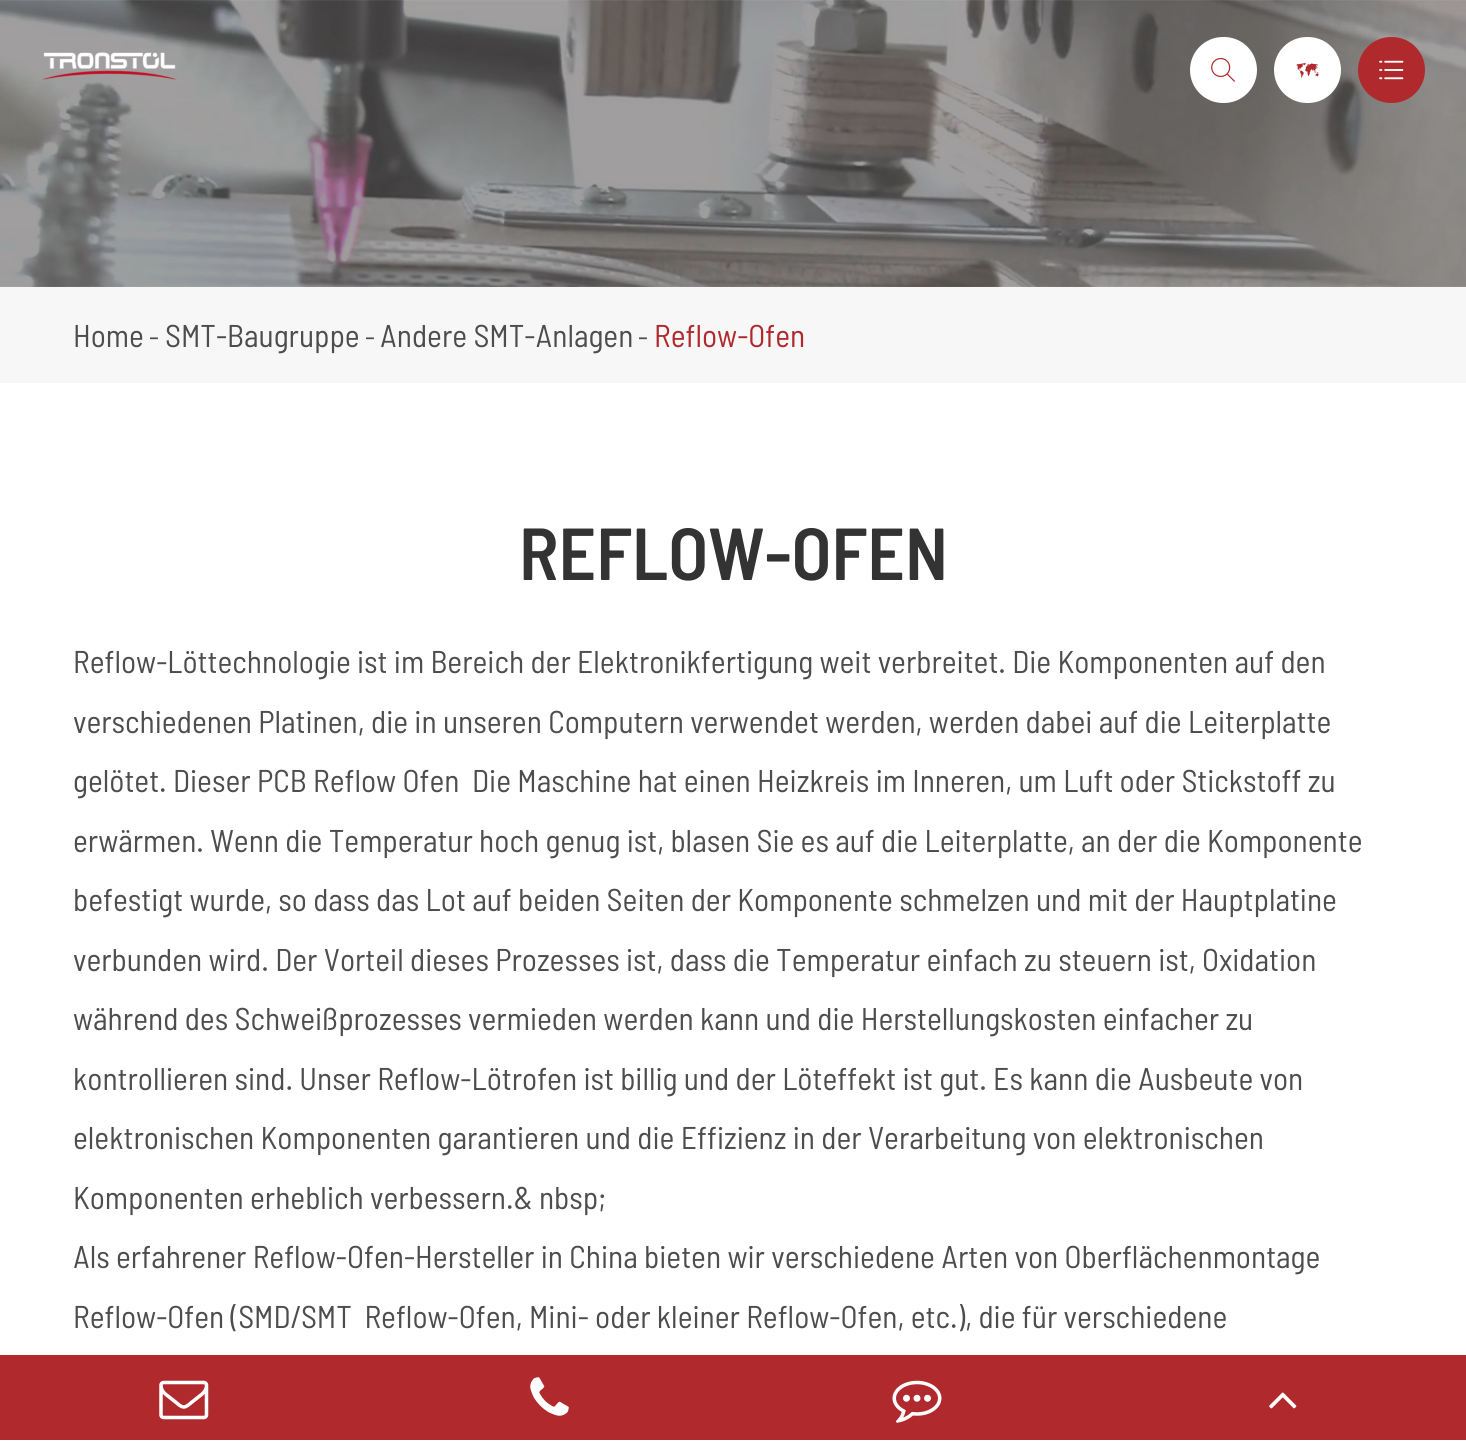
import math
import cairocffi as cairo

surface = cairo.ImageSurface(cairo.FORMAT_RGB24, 1466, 1441)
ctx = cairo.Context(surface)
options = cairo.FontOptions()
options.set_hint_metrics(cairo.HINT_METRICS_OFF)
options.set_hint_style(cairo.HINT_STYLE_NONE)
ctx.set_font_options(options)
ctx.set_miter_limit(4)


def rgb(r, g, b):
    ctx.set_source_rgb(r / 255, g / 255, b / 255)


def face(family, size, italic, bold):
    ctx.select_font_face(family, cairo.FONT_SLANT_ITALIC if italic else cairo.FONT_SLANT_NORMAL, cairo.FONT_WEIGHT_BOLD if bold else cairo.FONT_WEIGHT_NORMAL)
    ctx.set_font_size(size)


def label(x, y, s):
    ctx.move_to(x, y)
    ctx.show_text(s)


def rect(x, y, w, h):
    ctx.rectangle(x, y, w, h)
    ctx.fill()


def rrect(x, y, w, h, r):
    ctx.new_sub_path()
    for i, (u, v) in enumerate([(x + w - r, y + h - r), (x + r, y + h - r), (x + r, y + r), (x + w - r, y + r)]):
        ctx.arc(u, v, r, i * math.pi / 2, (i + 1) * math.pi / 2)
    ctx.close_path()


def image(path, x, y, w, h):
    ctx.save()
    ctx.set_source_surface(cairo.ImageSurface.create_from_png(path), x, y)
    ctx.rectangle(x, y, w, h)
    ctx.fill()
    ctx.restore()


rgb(255, 255, 255)
ctx.paint()
image('image0.png', 0, 0, 1466, 287)
image('image1.png', 42, 52, 135, 29)
rgb(255, 255, 255)
rrect(1190, 37, 67, 66, 33)
ctx.fill()
image('image2.png', 1211, 57, 24, 25)
rrect(1274, 37, 67, 66, 33)
ctx.fill()
image('image3.png', 1296, 63, 23, 15)
rgb(176, 41, 44)
rrect(1358, 37, 67, 66, 33)
ctx.fill()
image('image4.png', 1379, 60, 25, 20)
rgb(247, 247, 247)
rect(0, 287, 1466, 96)
face('Barlow Semi Condensed', 31.5, 0, 0)
rgb(77, 77, 77)
label(73, 347, 'Home')
face('Barlow Semi Condensed', 28, 0, 0)
label(149, 347, '-')
face('Barlow Semi Condensed', 31.5, 0, 0)
label(165, 347, 'SMT-Baugruppe')
face('Barlow Semi Condensed', 28, 0, 0)
label(365, 347, '-')
face('Barlow Semi Condensed', 31.5, 0, 0)
label(380, 347, 'Andere SMT-Anlagen')
face('Barlow Semi Condensed', 28, 0, 0)
label(638, 347, '-')
face('Barlow Semi Condensed', 31.5, 0, 0)
rgb(176, 41, 44)
label(654, 347, 'Reflow-Ofen')
face('Barlow Semi Condensed SemiBold', 73.5, 0, 0)
rgb(51, 51, 51)
label(519, 580, 'REFLOW-OFEN')
face('Barlow Semi Condensed', 31.5, 0, 0)
rgb(77, 77, 77)
label(73, 673, 'Reflow-Löttechnologie ist im Bereich der Elektronikfertigung weit verbreitet. Die Komponenten auf den')
label(73, 733, 'verschiedenen Platinen, die in unseren Computern verwendet werden, werden dabei auf die Leiterplatte')
label(73, 792, 'gelötet. Dieser PCB Reflow Ofen  Die Maschine hat einen Heizkreis im Inneren, um Luft oder Stickstoff zu')
label(73, 852, 'erwärmen. Wenn die Temperatur hoch genug ist, blasen Sie es auf die Leiterplatte, an der die Komponente')
label(73, 911, 'befestigt wurde, so dass das Lot auf beiden Seiten der Komponente schmelzen und mit der Hauptplatine')
label(73, 971, 'verbunden wird. Der Vorteil dieses Prozesses ist, dass die Temperatur einfach zu steuern ist, Oxidation')
label(73, 1030, 'während des Schweißprozesses vermieden werden kann und die Herstellungskosten einfacher zu')
label(73, 1090, 'kontrollieren sind. Unser Reflow-Lötrofen ist billig und der Löteffekt ist gut. Es kann die Ausbeute von')
label(73, 1149, 'elektronischen Komponenten garantieren und die Effizienz in der Verarbeitung von elektronischen')
label(73, 1209, 'Komponenten erheblich verbessern.& nbsp;')
label(73, 1268, 'Als erfahrener Reflow-Ofen-Hersteller in China bieten wir verschiedene Arten von Oberflächenmontage')
label(73, 1328, 'Reflow-Ofen (SMD/SMT  Reflow-Ofen, Mini- oder kleiner Reflow-Ofen, etc.), die für verschiedene')
rgb(176, 41, 44)
rect(0, 1355, 1466, 85)
image('image5.png', 159, 1380, 50, 40)
image('image6.png', 530, 1377, 39, 39)
image('image7.png', 892, 1380, 50, 43)
image('image8.png', 1269, 1392, 28, 17)
surface.write_to_png('render.png')
